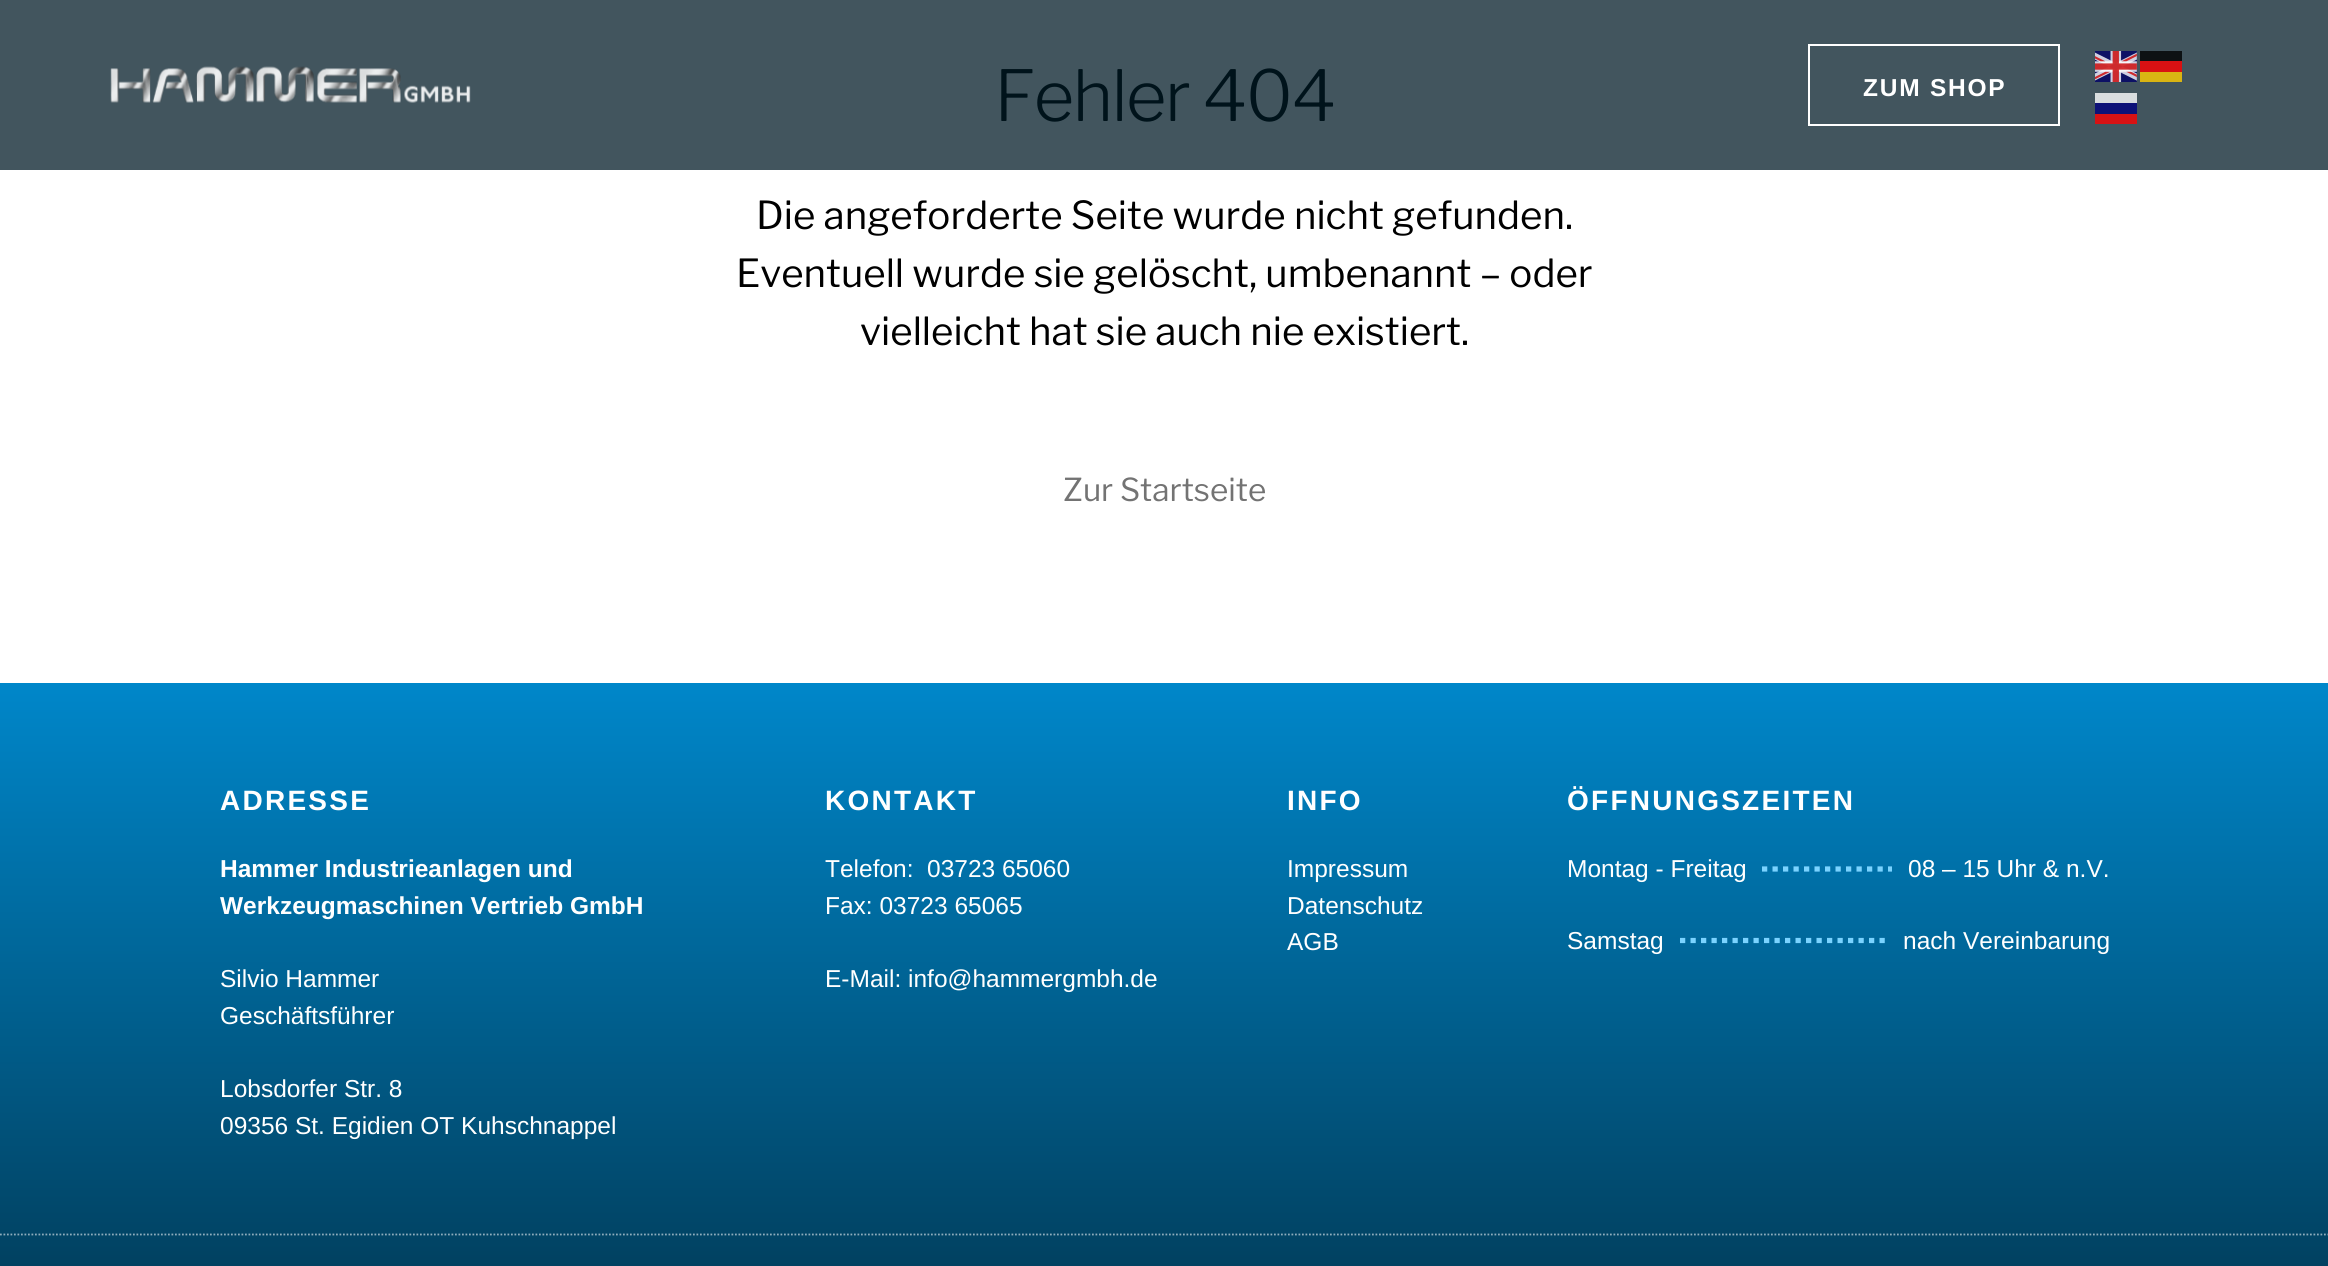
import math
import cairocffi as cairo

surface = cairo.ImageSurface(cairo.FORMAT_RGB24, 2328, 1266)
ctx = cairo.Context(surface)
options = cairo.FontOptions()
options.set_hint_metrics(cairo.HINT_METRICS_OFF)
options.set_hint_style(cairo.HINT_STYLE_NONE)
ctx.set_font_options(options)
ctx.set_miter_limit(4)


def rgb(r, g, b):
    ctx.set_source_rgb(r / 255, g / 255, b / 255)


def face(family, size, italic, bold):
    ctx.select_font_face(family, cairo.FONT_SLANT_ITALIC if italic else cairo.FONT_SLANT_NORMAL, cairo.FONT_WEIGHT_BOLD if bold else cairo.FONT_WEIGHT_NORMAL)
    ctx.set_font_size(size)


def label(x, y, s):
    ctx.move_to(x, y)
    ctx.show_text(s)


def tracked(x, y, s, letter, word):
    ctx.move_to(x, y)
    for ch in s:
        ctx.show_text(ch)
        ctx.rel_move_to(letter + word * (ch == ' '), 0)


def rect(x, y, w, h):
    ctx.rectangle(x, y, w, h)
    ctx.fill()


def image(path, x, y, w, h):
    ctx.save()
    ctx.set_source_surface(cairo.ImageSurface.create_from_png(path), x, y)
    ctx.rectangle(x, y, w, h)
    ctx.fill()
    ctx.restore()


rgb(255, 255, 255)
ctx.paint()
rgb(66, 85, 94)
rect(0, 0, 2328, 170)
face('Libre Franklin Thin', 70, 0, 0)
rgb(0, 19, 27)
tracked(994, 121, 'Fehler 404', -1.75, 0)
face('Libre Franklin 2 Thin', 38.5, 0, 0)
rgb(0, 0, 0)
label(756, 229, 'Die angeforderte Seite wurde nicht gefunden.')
label(736, 287, 'Eventuell wurde sie gelöscht, umbenannt – oder')
label(860, 345, 'vielleicht hat sie auch nie existiert.')
face('Libre Franklin 2 Thin', 31.5, 0, 0)
rgb(115, 115, 115)
label(1063, 501, 'Zur Startseite')
image('image0.png', 110, 66, 361, 37)
ctx.rectangle(1809, 45, 250, 80)
rgb(255, 255, 255)
ctx.stroke()
face('Liberation Sans', 24.5, 0, 1)
tracked(1863, 96, 'ZUM SHOP', 1.75, 0)
image('image1.png', 2095, 51, 42, 31)
rgb(13, 17, 19)
rect(2140, 51, 42, 10)
rgb(217, 17, 19)
rect(2140, 61, 42, 11)
rgb(217, 180, 19)
rect(2140, 72, 42, 10)
rgb(217, 221, 223)
rect(2095, 93, 42, 10)
rgb(14, 18, 120)
rect(2095, 103, 42, 11)
rgb(216, 18, 20)
rect(2095, 114, 42, 10)
gradient = cairo.LinearGradient(1165, 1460, 1165, 682)
gradient.add_color_stop_rgba(0, 0.004, 0.165, 0.243, 1)
gradient.add_color_stop_rgba(1, 0, 0.529, 0.792, 1)
ctx.set_source(gradient)
rect(0, 683, 2328, 583)
face('Liberation Sans', 28, 0, 1)
rgb(255, 255, 255)
tracked(220, 810, 'ADRESSE', 2.25, 0)
face('Liberation Sans', 24.5, 0, 1)
label(220, 877, 'Hammer Industrieanlagen und')
label(220, 914, 'Werkzeugmaschinen Vertrieb GmbH')
face('Liberation Sans', 24.5, 0, 0)
label(220, 987, 'Silvio Hammer')
label(220, 1024, 'Geschäftsführer')
label(220, 1097, 'Lobsdorfer Str. 8')
label(220, 1134, '09356 St. Egidien OT Kuhschnappel')
face('Liberation Sans', 28, 0, 1)
tracked(825, 810, 'KONTAKT', 2.25, 0)
face('Liberation Sans', 24.5, 0, 0)
label(825, 877, 'Telefon:')
label(927, 877, '03723 65060')
label(825, 914, 'Fax: 03723 65065')
label(825, 987, 'E-Mail: info@hammergmbh.de')
face('Liberation Sans', 28, 0, 1)
tracked(1287, 810, 'INFO', 2.25, 0)
face('Liberation Sans', 24.5, 0, 0)
label(1287, 877, 'Impressum')
label(1287, 914, 'Datenschutz')
label(1287, 950, 'AGB')
face('Liberation Sans', 28, 0, 1)
tracked(1567, 810, 'ÖFFNUNGSZEITEN', 2.25, 0)
face('Liberation Sans', 24.5, 0, 0)
label(1567, 877, 'Montag - Freitag')
ctx.new_path()
ctx.move_to(1762, 869)
ctx.line_to(1892, 869)
rgb(122, 211, 255)
ctx.set_line_width(5.2)
ctx.set_dash([5.25, 5.25])
ctx.stroke()
rgb(255, 255, 255)
label(1908, 877, '08 – 15 Uhr & n.V.')
label(1567, 949, 'Samstag')
ctx.new_path()
ctx.move_to(1680, 940.5)
ctx.line_to(1886.5, 940.5)
rgb(122, 211, 255)
ctx.stroke()
rgb(255, 255, 255)
label(1903, 949, 'nach Vereinbarung')
ctx.new_path()
ctx.move_to(0, 1234.5)
ctx.line_to(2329, 1234.5)
rgb(143, 173, 188)
ctx.set_line_width(1.8)
ctx.set_dash([1.75, 1.75])
ctx.stroke()
surface.write_to_png('render.png')
